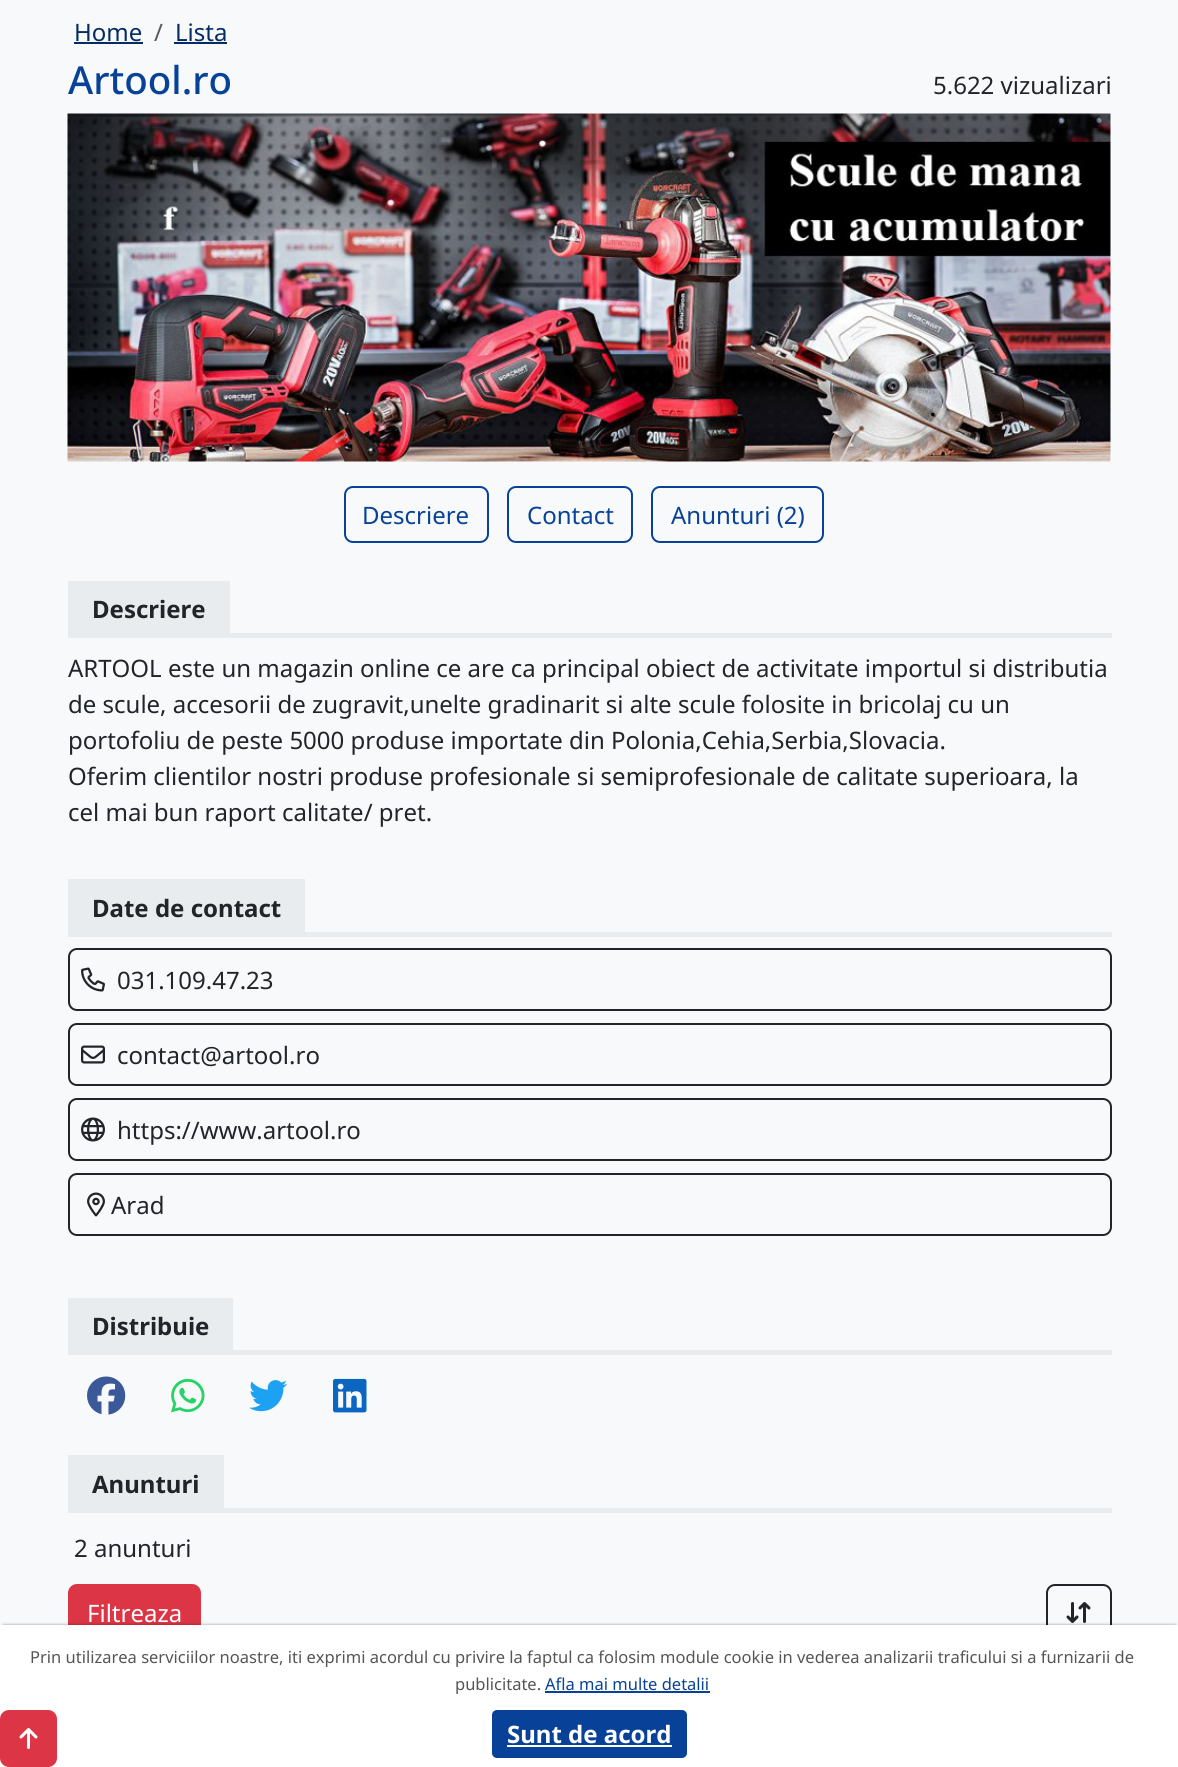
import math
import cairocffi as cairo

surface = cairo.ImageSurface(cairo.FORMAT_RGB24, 1178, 1767)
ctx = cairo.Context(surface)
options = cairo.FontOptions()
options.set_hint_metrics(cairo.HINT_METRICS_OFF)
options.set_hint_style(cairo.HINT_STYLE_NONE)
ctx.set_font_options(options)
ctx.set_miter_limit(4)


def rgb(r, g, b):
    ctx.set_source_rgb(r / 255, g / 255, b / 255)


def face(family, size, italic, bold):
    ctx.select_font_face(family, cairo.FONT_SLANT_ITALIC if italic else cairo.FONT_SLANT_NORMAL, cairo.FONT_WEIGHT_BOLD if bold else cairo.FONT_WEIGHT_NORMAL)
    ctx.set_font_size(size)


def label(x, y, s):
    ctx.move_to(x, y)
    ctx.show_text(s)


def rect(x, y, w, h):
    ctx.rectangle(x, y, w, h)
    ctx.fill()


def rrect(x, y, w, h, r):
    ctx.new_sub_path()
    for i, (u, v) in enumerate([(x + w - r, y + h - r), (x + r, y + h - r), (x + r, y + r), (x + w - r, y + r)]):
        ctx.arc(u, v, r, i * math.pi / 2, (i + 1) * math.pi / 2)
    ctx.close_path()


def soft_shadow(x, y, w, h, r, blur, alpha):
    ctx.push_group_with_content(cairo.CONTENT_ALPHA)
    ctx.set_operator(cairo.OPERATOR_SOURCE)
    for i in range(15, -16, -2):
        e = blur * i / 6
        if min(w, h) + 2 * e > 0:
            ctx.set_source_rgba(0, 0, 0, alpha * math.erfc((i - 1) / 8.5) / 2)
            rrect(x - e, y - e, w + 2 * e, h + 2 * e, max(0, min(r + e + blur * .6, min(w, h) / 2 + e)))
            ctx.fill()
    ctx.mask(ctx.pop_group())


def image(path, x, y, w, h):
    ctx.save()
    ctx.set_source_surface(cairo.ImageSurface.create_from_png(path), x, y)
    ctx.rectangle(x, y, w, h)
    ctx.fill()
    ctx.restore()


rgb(248, 249, 250)
ctx.paint()
face('Noto Sans', 24, 0, 0)
rgb(5, 44, 101)
label(74, 41, 'Home')
rect(74, 42, 69, 2)
rgb(87, 90, 93)
label(154, 41, '/')
rgb(5, 44, 101)
label(175, 41, 'Lista')
rect(174, 42, 53, 2)
face('Noto Sans Medium', 38.5, 0, 0)
rgb(8, 66, 152)
label(68, 94, 'Artool.ro')
face('Noto Sans', 24, 0, 0)
rgb(33, 37, 41)
label(933, 94, '5.622 vizualizari')
image('image0.png', 67, 113, 1045, 349)
rrect(345, 487, 143, 55, 8)
rgb(8, 66, 152)
ctx.stroke()
label(362, 524, 'Descriere')
rrect(508, 487, 124, 55, 8)
ctx.stroke()
label(527, 524, 'Contact')
rrect(652, 487, 171, 55, 8)
ctx.stroke()
label(671, 524, 'Anunturi (2)')
rgb(233, 236, 239)
rect(230, 633, 882, 5)
rect(68, 581, 162, 57)
face('Noto Sans', 24, 0, 1)
rgb(33, 37, 41)
label(92, 618, 'Descriere')
face('Noto Sans', 24, 0, 0)
label(68, 677, 'ARTOOL este un magazin online ce are ca principal obiect de activitate importul si distributia')
label(68, 713, 'de scule, accesorii de zugravit,unelte gradinarit si alte scule folosite in bricolaj cu un')
label(68, 749, 'portofoliu de peste 5000 produse importate din Polonia,Cehia,Serbia,Slovacia.')
label(68, 785, 'Oferim clientilor nostri produse profesionale si semiprofesionale de calitate superioara, la')
label(68, 821, 'cel mai bun raport calitate/ pret.')
rgb(233, 236, 239)
rect(68, 932, 1044, 5)
rect(68, 879, 237, 53)
face('Noto Sans', 24, 0, 1)
rgb(33, 37, 41)
label(92, 917, 'Date de contact')
rrect(69, 949, 1042, 61, 8)
ctx.stroke()
image('image1.png', 81, 967, 24, 25)
face('Noto Sans', 24, 0, 0)
label(117, 989, '031.109.47.23')
rrect(69, 1024, 1042, 61, 8)
ctx.stroke()
image('image2.png', 81, 1045, 24, 19)
label(117, 1064, 'contact@artool.ro')
rrect(69, 1099, 1042, 61, 8)
ctx.stroke()
image('image3.png', 81, 1117, 24, 25)
label(117, 1139, 'https://www.artool.ro')
rrect(69, 1174, 1042, 61, 8)
ctx.stroke()
image('image4.png', 87, 1192, 18, 25)
label(111, 1214, 'Arad')
rgb(233, 236, 239)
rect(233, 1350, 879, 5)
rect(68, 1298, 165, 57)
face('Noto Sans', 24, 0, 1)
rgb(33, 37, 41)
label(92, 1335, 'Distribuie')
image('image5.png', 87, 1376, 39, 39)
image('image6.png', 171, 1378, 34, 35)
image('image7.png', 249, 1380, 39, 32)
image('image8.png', 333, 1378, 34, 35)
rgb(233, 236, 239)
rect(68, 1508, 1044, 5)
rect(68, 1455, 156, 53)
rgb(33, 37, 41)
label(92, 1493, 'Anunturi')
face('Noto Sans', 24, 0, 0)
label(74, 1557, '2 anunturi')
rgb(220, 53, 69)
rrect(69, 1585, 131, 55, 8)
ctx.fill_preserve()
ctx.stroke()
rgb(255, 255, 255)
label(87, 1622, 'Filtreaza')
rrect(1047, 1585, 64, 55, 8)
rgb(33, 37, 41)
ctx.stroke()
image('image9.png', 1066, 1602, 25, 21)
rgb(0, 0, 0)
soft_shadow(3, 1625, 1173, 136, 0, 1.5, 0.4)
rgb(255, 255, 255)
rect(0, 1625, 1178, 142)
rgb(220, 53, 69)
rrect(1, 1711, 55, 55, 8)
ctx.fill_preserve()
ctx.stroke()
image('image10.png', 19, 1728, 19, 21)
face('Noto Sans', 16.5, 0, 0)
rgb(85, 85, 85)
label(30, 1663, 'Prin utilizarea serviciilor noastre, iti exprimi acordul cu privire la faptul ca folosim module cookie in vederea analizarii traficului si a furnizarii de')
label(455, 1690, 'publicitate.')
rgb(8, 66, 152)
label(545, 1690, 'Afla mai multe detalii')
rect(545, 1691, 165, 2)
rrect(492, 1710, 195, 48, 5)
ctx.fill()
face('Noto Sans', 24, 0, 1)
rgb(255, 255, 255)
label(507, 1743, 'Sunt de acord')
rect(507, 1745, 165, 2)
surface.write_to_png('render.png')
